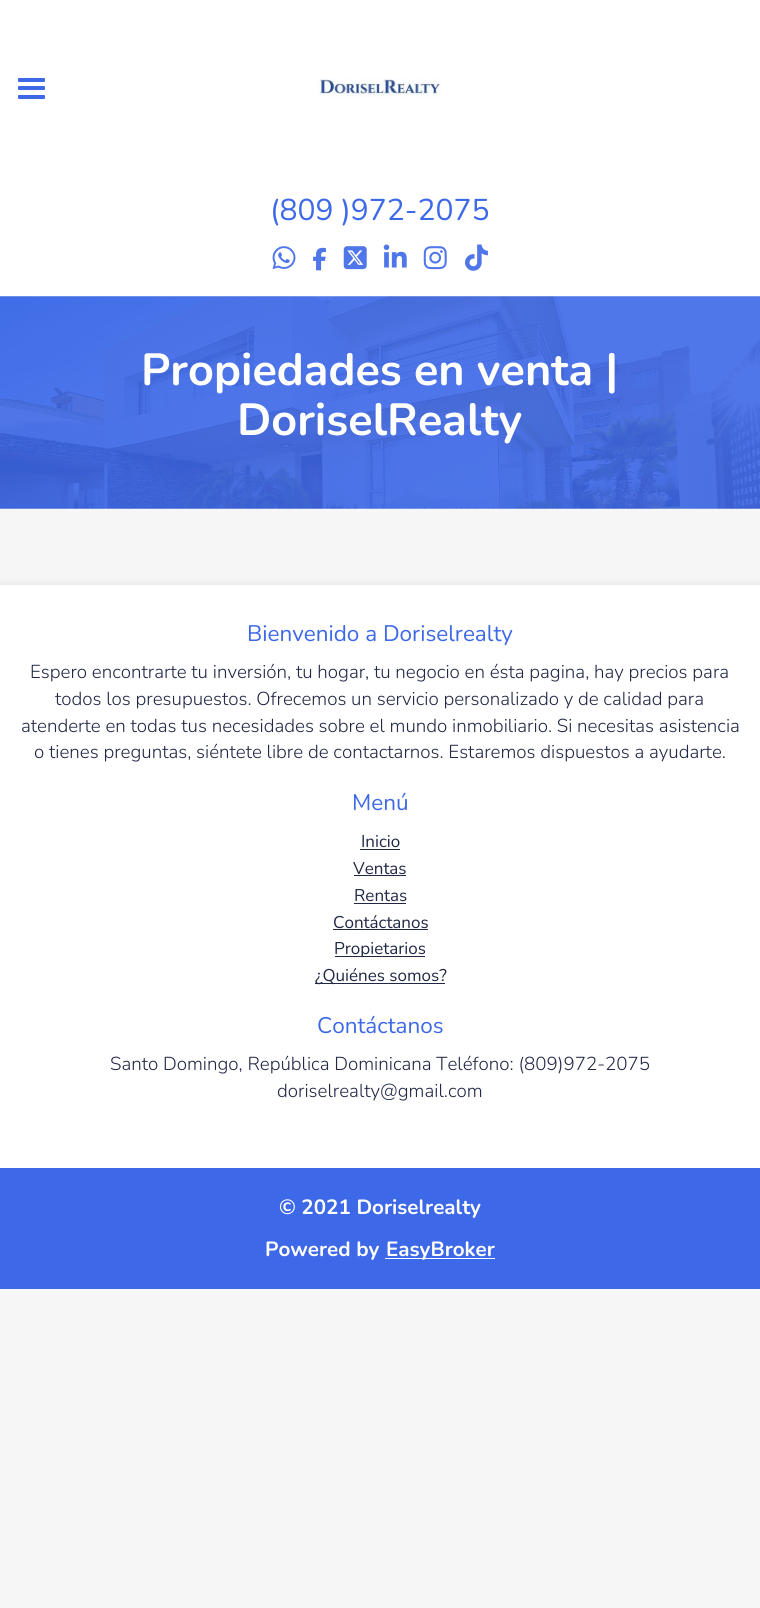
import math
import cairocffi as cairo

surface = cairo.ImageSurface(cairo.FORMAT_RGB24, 760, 1608)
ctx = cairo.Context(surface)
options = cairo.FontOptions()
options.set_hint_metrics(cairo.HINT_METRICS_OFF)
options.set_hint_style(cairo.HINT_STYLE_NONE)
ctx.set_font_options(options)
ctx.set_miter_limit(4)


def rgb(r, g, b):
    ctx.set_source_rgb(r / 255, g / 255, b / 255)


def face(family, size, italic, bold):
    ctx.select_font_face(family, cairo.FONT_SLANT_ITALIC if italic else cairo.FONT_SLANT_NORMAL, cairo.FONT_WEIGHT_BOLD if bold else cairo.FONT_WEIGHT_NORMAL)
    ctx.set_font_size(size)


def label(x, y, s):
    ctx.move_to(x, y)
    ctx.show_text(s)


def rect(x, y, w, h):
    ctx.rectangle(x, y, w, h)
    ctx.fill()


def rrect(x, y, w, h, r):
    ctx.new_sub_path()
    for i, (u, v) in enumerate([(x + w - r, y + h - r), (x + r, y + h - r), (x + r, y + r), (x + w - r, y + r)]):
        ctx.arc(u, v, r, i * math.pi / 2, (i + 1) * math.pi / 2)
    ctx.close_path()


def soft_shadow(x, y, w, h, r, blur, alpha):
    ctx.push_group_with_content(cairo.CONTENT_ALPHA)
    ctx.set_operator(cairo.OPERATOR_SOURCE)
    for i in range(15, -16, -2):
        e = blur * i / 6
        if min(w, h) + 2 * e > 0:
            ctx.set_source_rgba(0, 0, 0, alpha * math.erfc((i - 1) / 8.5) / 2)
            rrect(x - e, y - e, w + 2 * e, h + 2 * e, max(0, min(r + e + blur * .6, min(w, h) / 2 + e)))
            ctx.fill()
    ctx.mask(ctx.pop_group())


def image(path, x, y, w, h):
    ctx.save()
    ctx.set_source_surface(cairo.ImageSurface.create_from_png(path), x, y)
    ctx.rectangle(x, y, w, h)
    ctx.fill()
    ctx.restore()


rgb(246, 246, 246)
ctx.paint()
rgb(255, 255, 255)
rect(0, 0, 760, 296)
rgb(61, 104, 232)
rrect(18, 78, 27, 4, 1)
ctx.fill()
rrect(18, 86, 27, 4, 1)
ctx.fill()
rrect(18, 95, 27, 4, 1)
ctx.fill()
image('image0.png', 317, 78, 124, 19)
face('Nunito', 30, 0, 0)
label(270, 220, '(809 )972-2075')
image('image1.png', 272, 246, 24, 24)
image('image2.png', 313, 247, 13, 24)
image('image3.png', 343, 246, 24, 24)
image('image4.png', 383, 244, 24, 24)
image('image5.png', 423, 246, 24, 24)
image('image6.png', 465, 244, 23, 27)
image('image7.png', 0, 296, 760, 213)
face('Nunito', 45, 0, 1)
rgb(255, 255, 255)
label(141, 385, 'Propiedades en venta |')
label(237, 435, 'DoriselRealty')
rgb(0, 0, 0)
soft_shadow(0, 584, 760, 582, 0, 4, 0.08)
rgb(255, 255, 255)
rect(0, 585, 760, 583)
face('Nunito', 22.5, 0, 0)
rgb(61, 104, 232)
label(247, 641, 'Bienvenido a Doriselrealty')
face('Nunito Light', 18.75, 0, 0)
rgb(33, 40, 69)
label(30, 678, 'Espero encontrarte tu inversión, tu hogar, tu negocio en ésta pagina, hay precios para')
label(55, 705, 'todos los presupuestos. Ofrecemos un servicio personalizado y de calidad para')
label(21, 732, 'atenderte en todas tus necesidades sobre el mundo inmobiliario. Si necesitas asistencia')
label(34, 758, 'o tienes preguntas, siéntete libre de contactarnos. Estaremos dispuestos a ayudarte.')
face('Nunito', 22.5, 0, 0)
rgb(61, 104, 232)
label(352, 810, 'Menú')
face('Nunito', 17, 0, 0)
rgb(33, 40, 69)
label(361, 847, 'Inicio')
rect(360, 849, 40, 1)
label(353, 874, 'Ventas')
rect(354, 875, 52, 1)
label(354, 901, 'Rentas')
rect(354, 903, 52, 1)
label(333, 928, 'Contáctanos')
rect(333, 929, 95, 1)
rect(335, 956, 90, 1)
label(334, 954, 'Propietarios')
rect(315, 983, 130, 1)
label(315, 981, '¿Quiénes somos?')
face('Nunito', 22.5, 0, 0)
rgb(61, 104, 232)
label(317, 1033, 'Contáctanos')
face('Nunito Light', 18.75, 0, 0)
rgb(33, 40, 69)
label(110, 1070, 'Santo Domingo, República Dominicana Teléfono: (809)972-2075')
label(277, 1097, 'doriselrealty@gmail.com')
rgb(61, 104, 232)
rect(0, 1168, 760, 121)
face('Nunito', 20.6, 0, 1)
rgb(255, 255, 255)
label(279, 1214, '© 2021 Doriselrealty')
label(265, 1256, 'Powered by')
rect(385, 1258, 110, 1)
label(386, 1256, 'EasyBroker')
surface.write_to_png('render.png')
